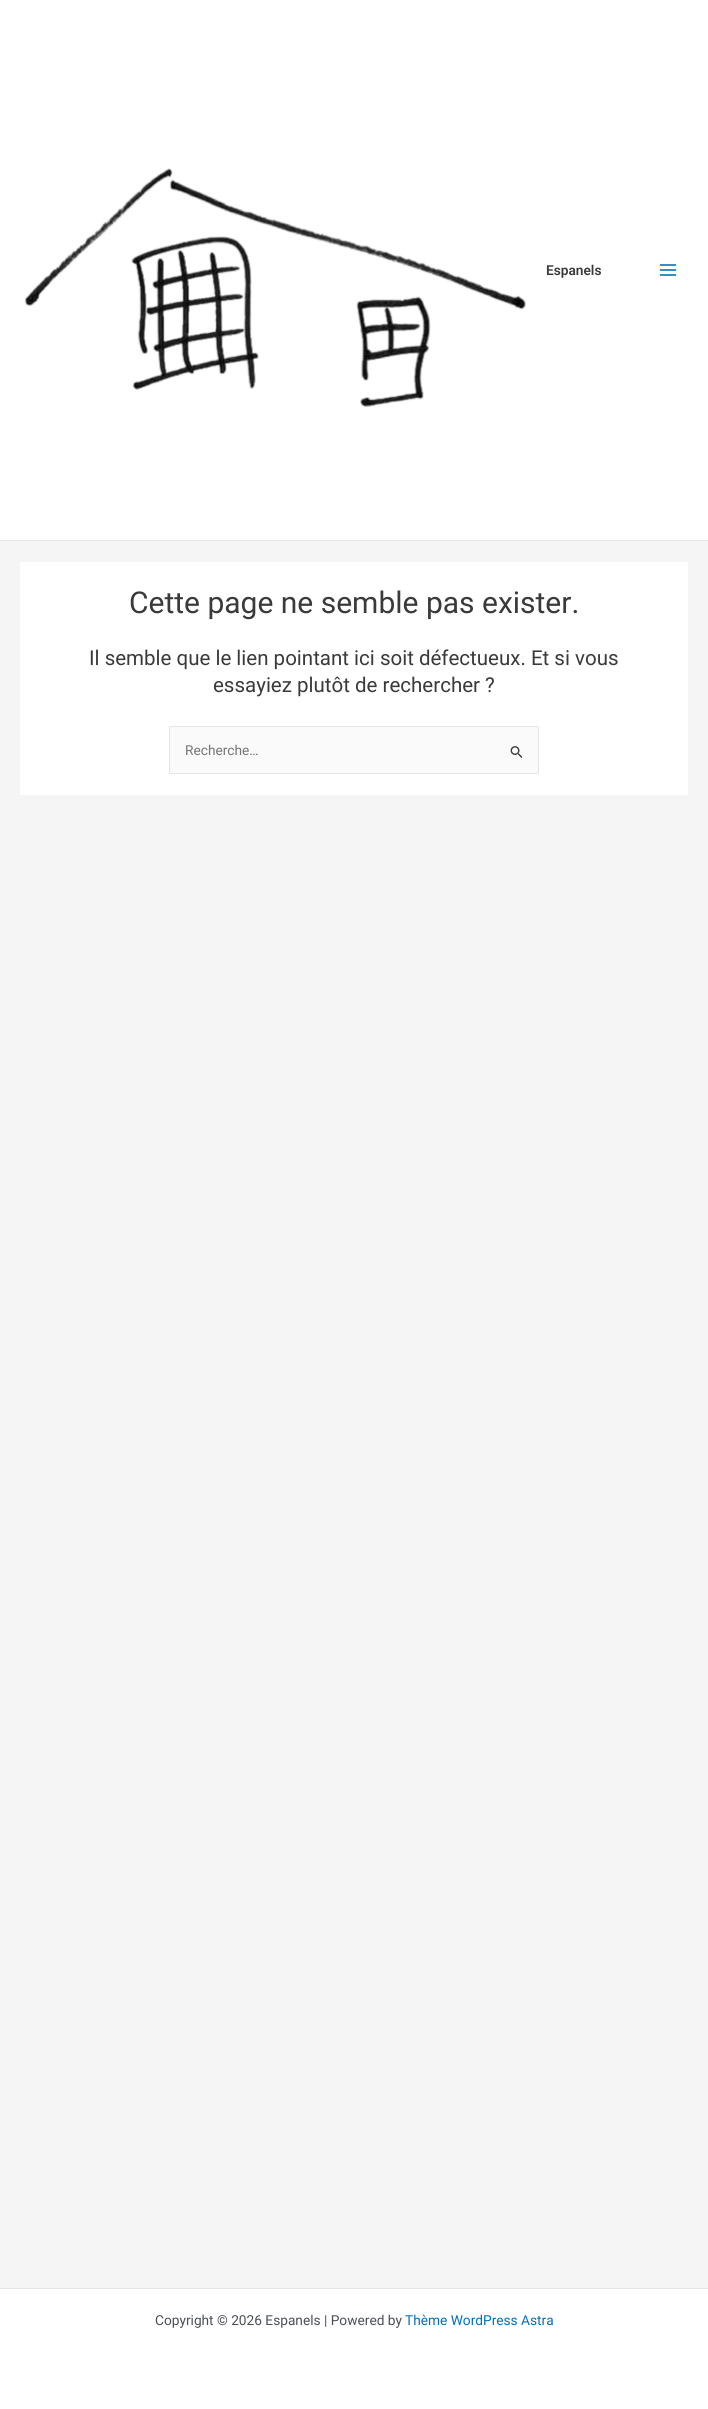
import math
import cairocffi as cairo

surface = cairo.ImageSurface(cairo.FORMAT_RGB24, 708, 2409)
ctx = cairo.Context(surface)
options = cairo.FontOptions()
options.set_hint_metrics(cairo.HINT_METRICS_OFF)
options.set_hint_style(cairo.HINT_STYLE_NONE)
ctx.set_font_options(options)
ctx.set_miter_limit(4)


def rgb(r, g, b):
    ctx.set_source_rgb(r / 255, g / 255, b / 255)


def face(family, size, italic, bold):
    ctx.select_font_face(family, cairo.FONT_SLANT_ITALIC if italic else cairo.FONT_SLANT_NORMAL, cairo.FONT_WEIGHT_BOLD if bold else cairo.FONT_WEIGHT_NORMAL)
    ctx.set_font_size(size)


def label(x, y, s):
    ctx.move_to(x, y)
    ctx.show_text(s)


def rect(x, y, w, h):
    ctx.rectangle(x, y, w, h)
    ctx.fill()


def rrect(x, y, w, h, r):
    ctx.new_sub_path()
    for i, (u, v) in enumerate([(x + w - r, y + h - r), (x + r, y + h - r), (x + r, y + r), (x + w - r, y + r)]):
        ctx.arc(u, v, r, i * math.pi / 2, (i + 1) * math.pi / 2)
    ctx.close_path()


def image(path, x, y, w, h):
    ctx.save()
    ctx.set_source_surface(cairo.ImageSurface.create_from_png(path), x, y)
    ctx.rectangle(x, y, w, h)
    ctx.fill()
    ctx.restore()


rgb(245, 245, 245)
ctx.paint()
rgb(255, 255, 255)
rect(0, 0, 708, 540)
rgb(229, 229, 229)
rect(0, 540, 708, 1)
image('image0.png', 24, 168, 503, 239)
face('Roboto SemiBold', 13.7, 0, 0)
rgb(58, 58, 58)
label(546, 275, 'Espanels')
image('image1.png', 659, 264, 18, 12)
rgb(255, 255, 255)
rect(20, 562, 668, 233)
face('Roboto', 30, 0, 0)
rgb(58, 58, 58)
label(129, 613, 'Cette page ne semble pas exister.')
face('Roboto', 20.5, 0, 0)
label(89, 665, 'Il semble que le lien pointant ici soit défectueux. Et si vous')
label(213, 692, 'essayiez plutôt de rechercher ?')
rgb(250, 250, 250)
rrect(169.5, 726.5, 369, 47, 1.5)
ctx.fill_preserve()
rgb(229, 229, 229)
ctx.set_line_width(1)
ctx.stroke()
face('Roboto', 13.7, 0, 0)
rgb(117, 117, 117)
label(185, 755, 'Recherche…')
image('image2.png', 510, 746, 12, 12)
rgb(255, 255, 255)
rect(0, 2289, 708, 120)
rgb(229, 229, 229)
rect(0, 2288, 708, 1)
rgb(75, 79, 88)
label(155, 2325, 'Copyright © 2026 Espanels | Powered by')
rgb(1, 112, 185)
label(405, 2325, 'Thème WordPress Astra')
surface.write_to_png('render.png')
